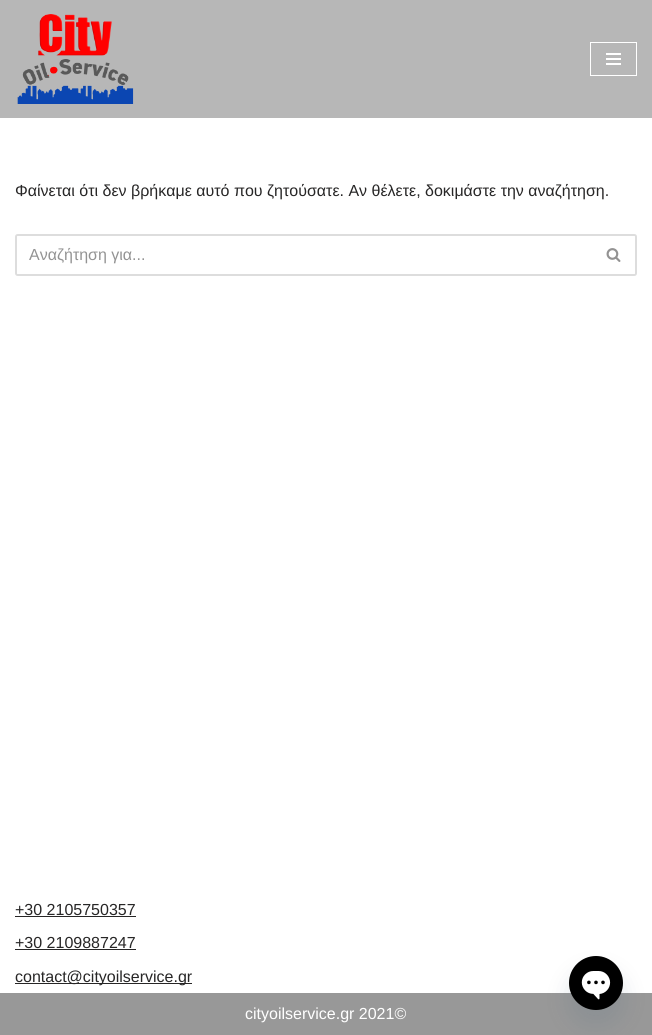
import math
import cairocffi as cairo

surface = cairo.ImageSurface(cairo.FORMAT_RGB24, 652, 1035)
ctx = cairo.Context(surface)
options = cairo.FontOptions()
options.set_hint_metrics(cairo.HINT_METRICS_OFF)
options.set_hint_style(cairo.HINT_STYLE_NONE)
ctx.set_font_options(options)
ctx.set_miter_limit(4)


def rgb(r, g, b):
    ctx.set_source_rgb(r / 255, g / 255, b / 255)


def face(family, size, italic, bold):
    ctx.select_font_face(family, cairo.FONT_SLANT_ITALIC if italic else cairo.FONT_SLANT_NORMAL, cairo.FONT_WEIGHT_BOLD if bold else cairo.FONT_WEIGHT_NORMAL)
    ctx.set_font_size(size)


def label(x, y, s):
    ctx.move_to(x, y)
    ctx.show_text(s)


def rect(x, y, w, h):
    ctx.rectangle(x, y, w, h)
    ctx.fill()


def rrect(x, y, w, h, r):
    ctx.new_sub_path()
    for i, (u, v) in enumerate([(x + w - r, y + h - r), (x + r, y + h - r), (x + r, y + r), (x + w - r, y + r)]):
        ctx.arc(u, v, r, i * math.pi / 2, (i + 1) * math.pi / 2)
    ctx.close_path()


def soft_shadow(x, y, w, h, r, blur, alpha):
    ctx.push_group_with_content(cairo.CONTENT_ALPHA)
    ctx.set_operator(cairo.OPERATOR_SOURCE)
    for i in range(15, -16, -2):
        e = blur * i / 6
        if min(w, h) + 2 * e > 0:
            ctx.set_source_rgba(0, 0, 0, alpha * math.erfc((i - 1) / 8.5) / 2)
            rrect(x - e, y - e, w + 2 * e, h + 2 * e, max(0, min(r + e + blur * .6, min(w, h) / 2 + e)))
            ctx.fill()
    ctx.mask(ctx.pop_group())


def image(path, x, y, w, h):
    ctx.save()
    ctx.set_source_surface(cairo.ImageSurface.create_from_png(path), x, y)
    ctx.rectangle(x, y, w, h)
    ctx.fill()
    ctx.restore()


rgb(255, 255, 255)
ctx.paint()
rgb(183, 183, 183)
rect(0, 0, 652, 118)
image('image0.png', 17, 14, 117, 90)
ctx.rectangle(590.5, 42.5, 46, 33)
rgb(255, 255, 255)
ctx.set_line_width(1)
ctx.stroke()
rect(606, 53, 15, 2)
rect(606, 58, 15, 2)
rect(606, 63, 15, 2)
face('Liberation Sans', 16, 0, 0)
rgb(39, 38, 38)
label(15, 196, 'Φαίνεται ότι δεν βρήκαμε αυτό που ζητούσατε. Αν θέλετε, δοκιμάστε την αναζήτηση.')
rgb(221, 221, 221)
ctx.set_fill_rule(cairo.FILL_RULE_EVEN_ODD)
ctx.new_path()
ctx.move_to(18, 234)
ctx.line_to(592, 234)
ctx.line_to(592, 276)
ctx.line_to(18, 276)
ctx.curve_to(16, 276, 15, 275, 15, 273)
ctx.line_to(15, 237)
ctx.curve_to(15, 235, 16, 234, 18, 234)
ctx.close_path()
ctx.move_to(18, 236)
ctx.line_to(592, 236)
ctx.line_to(592, 274)
ctx.line_to(18, 274)
ctx.curve_to(17, 274, 17, 274, 17, 273)
ctx.line_to(17, 237)
ctx.curve_to(17, 236, 17, 236, 18, 236)
ctx.close_path()
ctx.fill()
rgb(147, 147, 147)
label(29, 260, 'Αναζήτηση για...')
rgb(221, 221, 221)
ctx.new_path()
ctx.move_to(592, 234)
ctx.line_to(634, 234)
ctx.curve_to(636, 234, 637, 235, 637, 237)
ctx.line_to(637, 273)
ctx.curve_to(637, 275, 636, 276, 634, 276)
ctx.line_to(592, 276)
ctx.close_path()
ctx.move_to(592, 236)
ctx.line_to(634, 236)
ctx.curve_to(635, 236, 635, 236, 635, 237)
ctx.line_to(635, 273)
ctx.curve_to(635, 274, 635, 274, 634, 274)
ctx.line_to(592, 274)
ctx.close_path()
ctx.fill()
image('image1.png', 606, 248, 15, 14)
rgb(39, 38, 38)
label(15, 915, '+30 2105750357')
rect(15, 916, 121, 1)
label(15, 948, '+30 2109887247')
rect(15, 949, 121, 1)
rect(15, 983, 177, 1)
label(15, 982, 'contact@cityoilservice.gr')
rgb(152, 152, 152)
rect(0, 993, 652, 42)
rgb(255, 255, 255)
label(245, 1019, 'cityoilservice.gr 2021©')
rgb(73, 104, 126)
soft_shadow(569, 972, 54, 54, 27, 12, 0.16)
image('image2.png', 569, 956, 54, 54)
surface.write_to_png('render.png')
